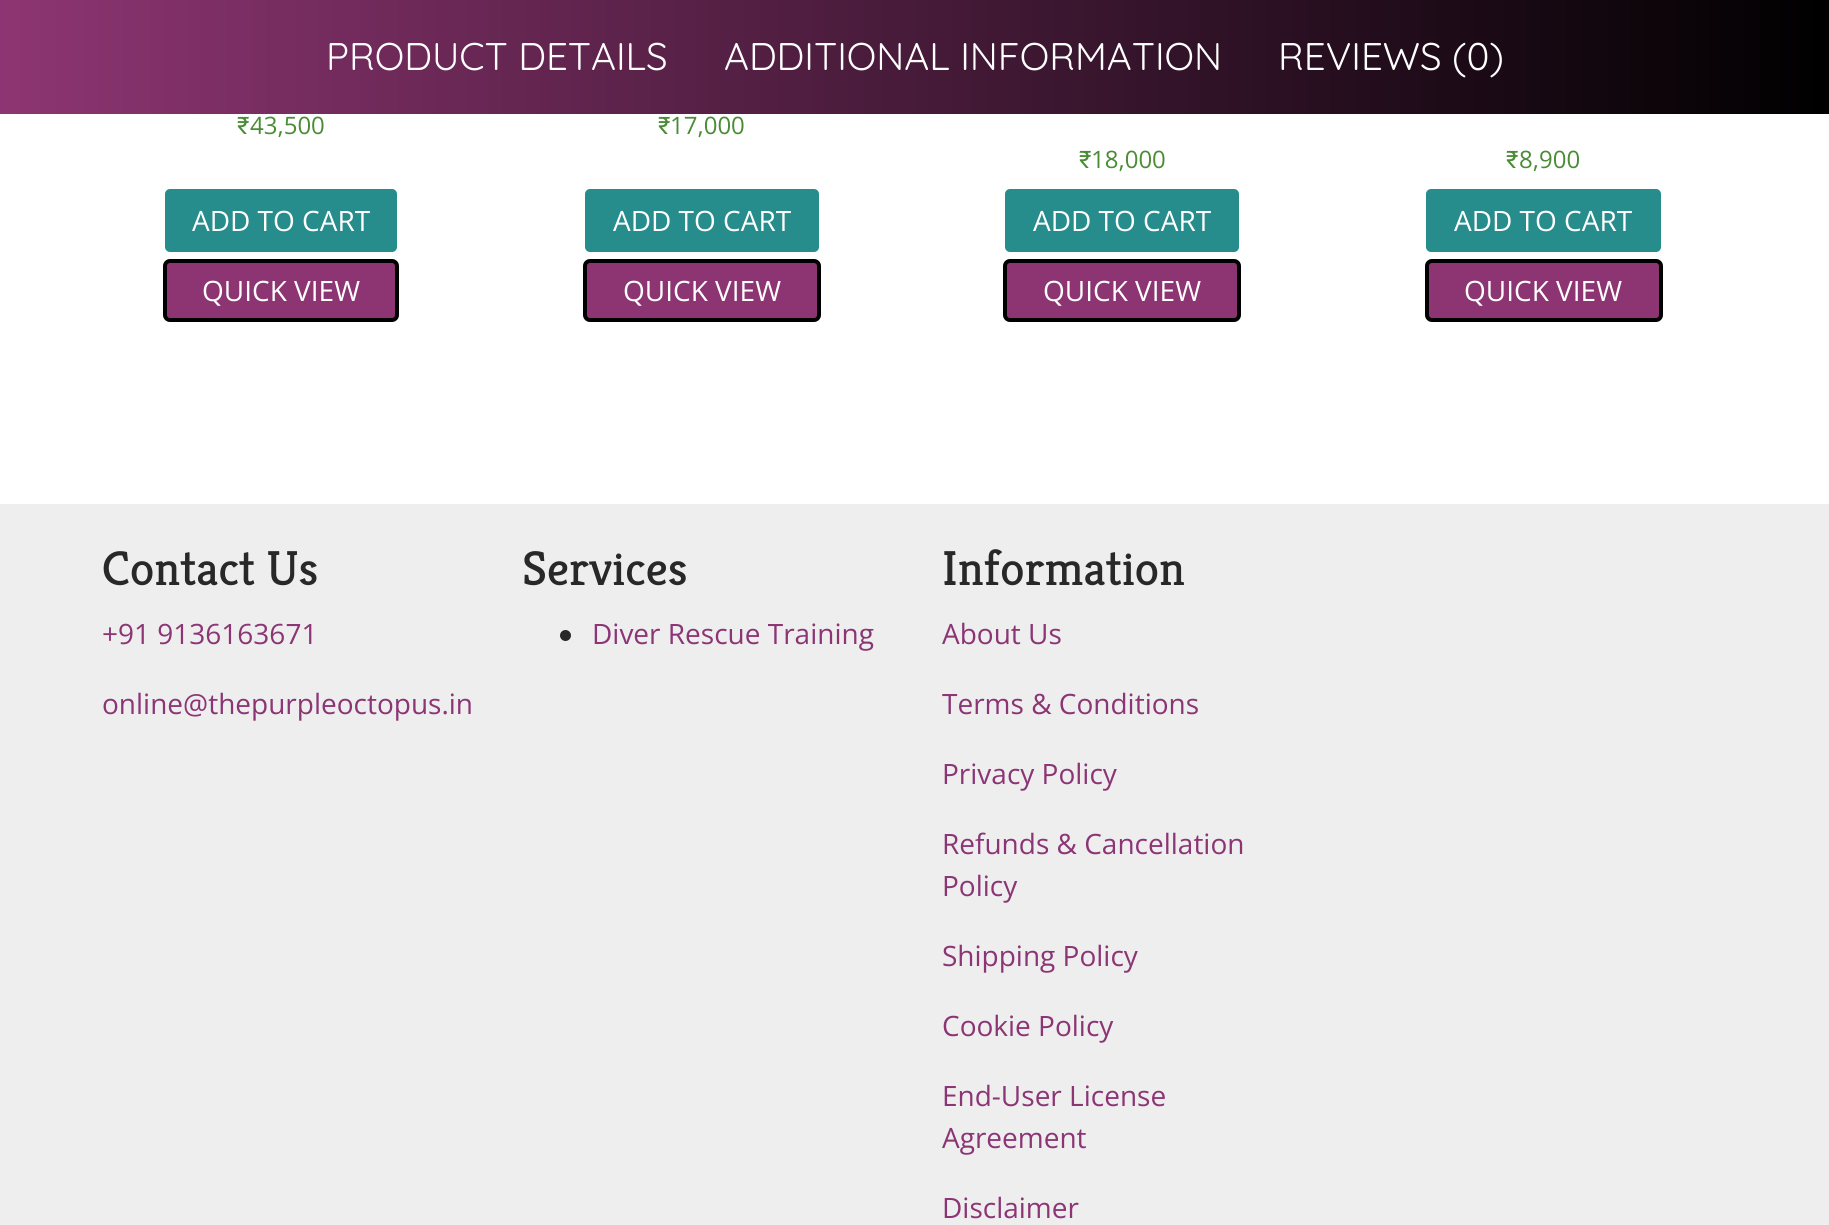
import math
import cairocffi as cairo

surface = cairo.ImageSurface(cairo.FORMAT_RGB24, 1829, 1225)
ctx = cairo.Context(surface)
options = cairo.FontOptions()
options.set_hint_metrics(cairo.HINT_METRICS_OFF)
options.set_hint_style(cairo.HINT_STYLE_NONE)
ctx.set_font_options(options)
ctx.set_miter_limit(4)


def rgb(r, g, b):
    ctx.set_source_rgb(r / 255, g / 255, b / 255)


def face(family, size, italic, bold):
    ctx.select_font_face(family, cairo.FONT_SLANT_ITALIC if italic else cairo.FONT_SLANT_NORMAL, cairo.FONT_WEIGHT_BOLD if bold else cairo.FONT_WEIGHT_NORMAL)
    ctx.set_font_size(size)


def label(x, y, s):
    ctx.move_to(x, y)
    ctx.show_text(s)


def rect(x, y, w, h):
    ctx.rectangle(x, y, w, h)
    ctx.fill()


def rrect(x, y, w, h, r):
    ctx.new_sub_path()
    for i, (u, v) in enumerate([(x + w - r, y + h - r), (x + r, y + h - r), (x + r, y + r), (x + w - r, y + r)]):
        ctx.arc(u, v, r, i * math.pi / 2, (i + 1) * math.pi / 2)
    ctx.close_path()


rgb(255, 255, 255)
ctx.paint()
gradient = cairo.LinearGradient(0, 57, 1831, 57)
gradient.add_color_stop_rgba(0, 0.553, 0.208, 0.447, 1)
gradient.add_color_stop_rgba(1, 0, 0, 0, 1)
ctx.set_source(gradient)
rect(0, 0, 1829, 114)
face('Quicksand Light', 38.5, 0, 0)
rgb(255, 255, 255)
label(326, 70, 'PRODUCT DETAILS')
label(724, 70, 'ADDITIONAL INFORMATION')
label(1278, 70, 'REVIEWS (0)')
face('Roboto', 24, 0, 0)
rgb(74, 140, 53)
label(237, 134, '₹')
face('Open Sans', 24, 0, 0)
label(250, 134, '43,500')
rgb(39, 140, 140)
rrect(165, 189, 232, 63, 5)
ctx.fill()
face('Open Sans', 28, 0, 0)
rgb(255, 255, 255)
label(192, 231, 'ADD TO CART')
rgb(141, 53, 114)
rrect(165, 261, 232, 59, 5)
ctx.fill_preserve()
rgb(0, 0, 0)
ctx.set_line_width(4)
ctx.stroke()
rgb(255, 255, 255)
label(202, 301, 'QUICK VIEW')
face('Roboto', 24, 0, 0)
rgb(74, 140, 53)
label(658, 134, '₹')
face('Open Sans', 24, 0, 0)
label(670, 134, '17,000')
rgb(39, 140, 140)
rrect(585, 189, 234, 63, 5)
ctx.fill()
face('Open Sans', 28, 0, 0)
rgb(255, 255, 255)
label(613, 231, 'ADD TO CART')
rgb(141, 53, 114)
rrect(585, 261, 234, 59, 5)
ctx.fill_preserve()
rgb(0, 0, 0)
ctx.stroke()
rgb(255, 255, 255)
label(623, 301, 'QUICK VIEW')
face('Roboto', 24, 0, 0)
rgb(74, 140, 53)
label(1079, 168, '₹')
face('Open Sans', 24, 0, 0)
label(1091, 168, '18,000')
rgb(39, 140, 140)
rrect(1005, 189, 234, 63, 5)
ctx.fill()
face('Open Sans', 28, 0, 0)
rgb(255, 255, 255)
label(1033, 231, 'ADD TO CART')
rgb(141, 53, 114)
rrect(1005, 261, 234, 59, 5)
ctx.fill_preserve()
rgb(0, 0, 0)
ctx.stroke()
rgb(255, 255, 255)
label(1043, 301, 'QUICK VIEW')
face('Roboto', 24, 0, 0)
rgb(74, 140, 53)
label(1506, 168, '₹')
face('Open Sans', 24, 0, 0)
label(1519, 168, '8,900')
rgb(39, 140, 140)
rrect(1426, 189, 235, 63, 5)
ctx.fill()
face('Open Sans', 28, 0, 0)
rgb(255, 255, 255)
label(1454, 231, 'ADD TO CART')
rgb(141, 53, 114)
rrect(1427, 261, 234, 59, 5)
ctx.fill_preserve()
rgb(0, 0, 0)
ctx.stroke()
rgb(255, 255, 255)
label(1464, 301, 'QUICK VIEW')
rgb(238, 238, 238)
rect(0, 504, 1829, 721)
face('Kreon Light', 49, 0, 0)
rgb(40, 40, 40)
label(102, 585, 'Contact Us')
face('Open Sans', 28, 0, 0)
rgb(140, 53, 117)
label(102, 644, '+91 9136163671')
label(102, 714, 'online@thepurpleoctopus.in')
face('Kreon Light', 49, 0, 0)
rgb(40, 40, 40)
label(522, 585, 'Services')
ctx.new_path()
ctx.arc(565.5, 635.5, 5.5, 0, 2 * math.pi)
ctx.fill()
face('Open Sans', 28, 0, 0)
rgb(140, 53, 117)
label(592, 644, 'Diver Rescue Training')
face('Kreon Light', 49, 0, 0)
rgb(40, 40, 40)
label(942, 585, 'Information')
face('Open Sans', 28, 0, 0)
rgb(140, 53, 117)
label(942, 644, 'About Us')
label(942, 714, 'Terms & Conditions')
label(942, 784, 'Privacy Policy')
label(942, 854, 'Refunds & Cancellation')
label(942, 896, 'Policy')
label(942, 966, 'Shipping Policy')
label(942, 1036, 'Cookie Policy')
label(942, 1106, 'End-User License')
label(942, 1148, 'Agreement')
label(942, 1218, 'Disclaimer')
surface.write_to_png('render.png')
